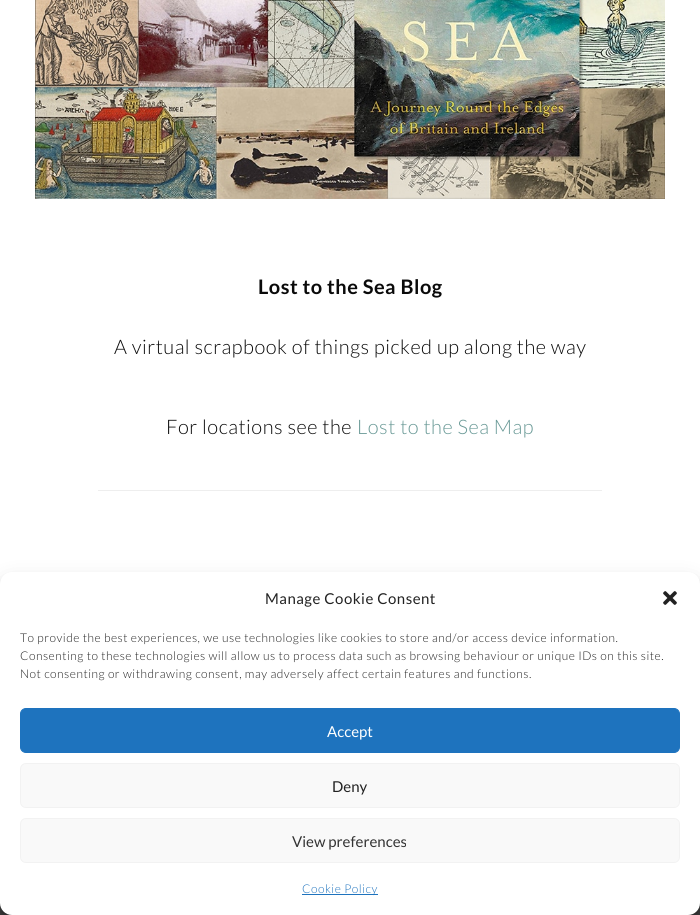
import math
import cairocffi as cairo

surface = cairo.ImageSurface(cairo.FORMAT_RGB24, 700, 915)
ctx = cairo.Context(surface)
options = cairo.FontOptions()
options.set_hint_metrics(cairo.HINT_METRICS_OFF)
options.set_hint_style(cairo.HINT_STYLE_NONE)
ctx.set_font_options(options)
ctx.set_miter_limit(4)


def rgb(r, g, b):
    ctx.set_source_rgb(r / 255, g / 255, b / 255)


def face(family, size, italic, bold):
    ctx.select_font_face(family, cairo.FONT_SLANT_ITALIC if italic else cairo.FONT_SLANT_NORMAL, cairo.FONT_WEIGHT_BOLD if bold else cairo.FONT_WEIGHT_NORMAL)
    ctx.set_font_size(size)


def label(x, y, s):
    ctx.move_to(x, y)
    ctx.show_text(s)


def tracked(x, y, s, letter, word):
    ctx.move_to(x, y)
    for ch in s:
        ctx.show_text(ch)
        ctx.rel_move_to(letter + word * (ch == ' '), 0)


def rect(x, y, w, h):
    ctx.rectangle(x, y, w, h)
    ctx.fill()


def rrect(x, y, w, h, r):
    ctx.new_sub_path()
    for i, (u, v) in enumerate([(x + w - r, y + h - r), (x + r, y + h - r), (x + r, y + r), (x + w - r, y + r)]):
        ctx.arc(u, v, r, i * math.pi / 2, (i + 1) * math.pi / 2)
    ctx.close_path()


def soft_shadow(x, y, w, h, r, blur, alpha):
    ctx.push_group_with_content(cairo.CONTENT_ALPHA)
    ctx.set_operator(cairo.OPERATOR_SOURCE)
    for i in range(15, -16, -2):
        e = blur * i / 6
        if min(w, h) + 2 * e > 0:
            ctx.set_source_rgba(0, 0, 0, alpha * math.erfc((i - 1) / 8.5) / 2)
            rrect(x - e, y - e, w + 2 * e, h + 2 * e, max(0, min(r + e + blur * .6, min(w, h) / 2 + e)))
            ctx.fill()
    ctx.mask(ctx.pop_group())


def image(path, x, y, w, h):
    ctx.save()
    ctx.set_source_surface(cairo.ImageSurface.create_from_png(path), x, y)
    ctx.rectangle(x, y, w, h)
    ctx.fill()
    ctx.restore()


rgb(255, 255, 255)
ctx.paint()
image('image0.png', 35, 0, 630, 199)
face('Lato', 20, 0, 1)
rgb(10, 10, 10)
tracked(258, 294, 'Lost to the Sea Blog', 0.5, 0)
face('Lato Light', 20, 0, 0)
tracked(114, 354, 'A virtual scrapbook of things picked up along the way', 0.5, 0)
tracked(166, 434, 'For locations see the', 0.5, 0)
rgb(105, 153, 150)
tracked(357, 434, 'Lost to the Sea Map', 0.5, 0)
rgb(238, 238, 238)
rect(98, 490, 504, 1)
rgb(63, 63, 63)
rect(0, 903, 700, 12)
rgb(0, 0, 0)
soft_shadow(0, 578, 700, 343, 12, 3, 0.23)
soft_shadow(0, 582, 700, 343, 12, 10, 0.19)
rgb(255, 255, 255)
rrect(0, 572, 700, 343, 12)
ctx.fill()
face('Lato', 15, 0, 0)
rgb(34, 34, 34)
tracked(265, 604, 'Manage Cookie Consent', 0.5, 0)
image('image1.png', 663, 591, 14, 14)
face('Lato Light', 12, 0, 0)
tracked(20, 642, 'To provide the best experiences, we use technologies like cookies to store and/or access device information.', 0.5, 0)
tracked(20, 660, 'Consenting to these technologies will allow us to process data such as browsing behaviour or unique IDs on this site.', 0.5, 0)
tracked(20, 678, 'Not consenting or withdrawing consent, may adversely affect certain features and functions.', 0.5, 0)
rgb(30, 115, 190)
rrect(20.5, 708.5, 659, 44, 5.5)
ctx.fill_preserve()
ctx.set_line_width(1)
ctx.stroke()
face('Lato', 15, 0, 0)
rgb(255, 255, 255)
label(327, 737, 'Accept')
rgb(249, 249, 249)
rrect(20.5, 763.5, 659, 44, 5.5)
ctx.fill_preserve()
rgb(242, 242, 242)
ctx.stroke()
rgb(34, 34, 34)
label(332, 792, 'Deny')
rgb(249, 249, 249)
rrect(20.5, 818.5, 659, 44, 5.5)
ctx.fill_preserve()
rgb(242, 242, 242)
ctx.stroke()
rgb(51, 51, 51)
label(292, 847, 'View preferences')
rgb(30, 115, 190)
rect(302, 894, 76, 1)
face('Lato Light', 12, 0, 0)
tracked(302, 893, 'Cookie Policy', 0.5, 0)
surface.write_to_png('render.png')
